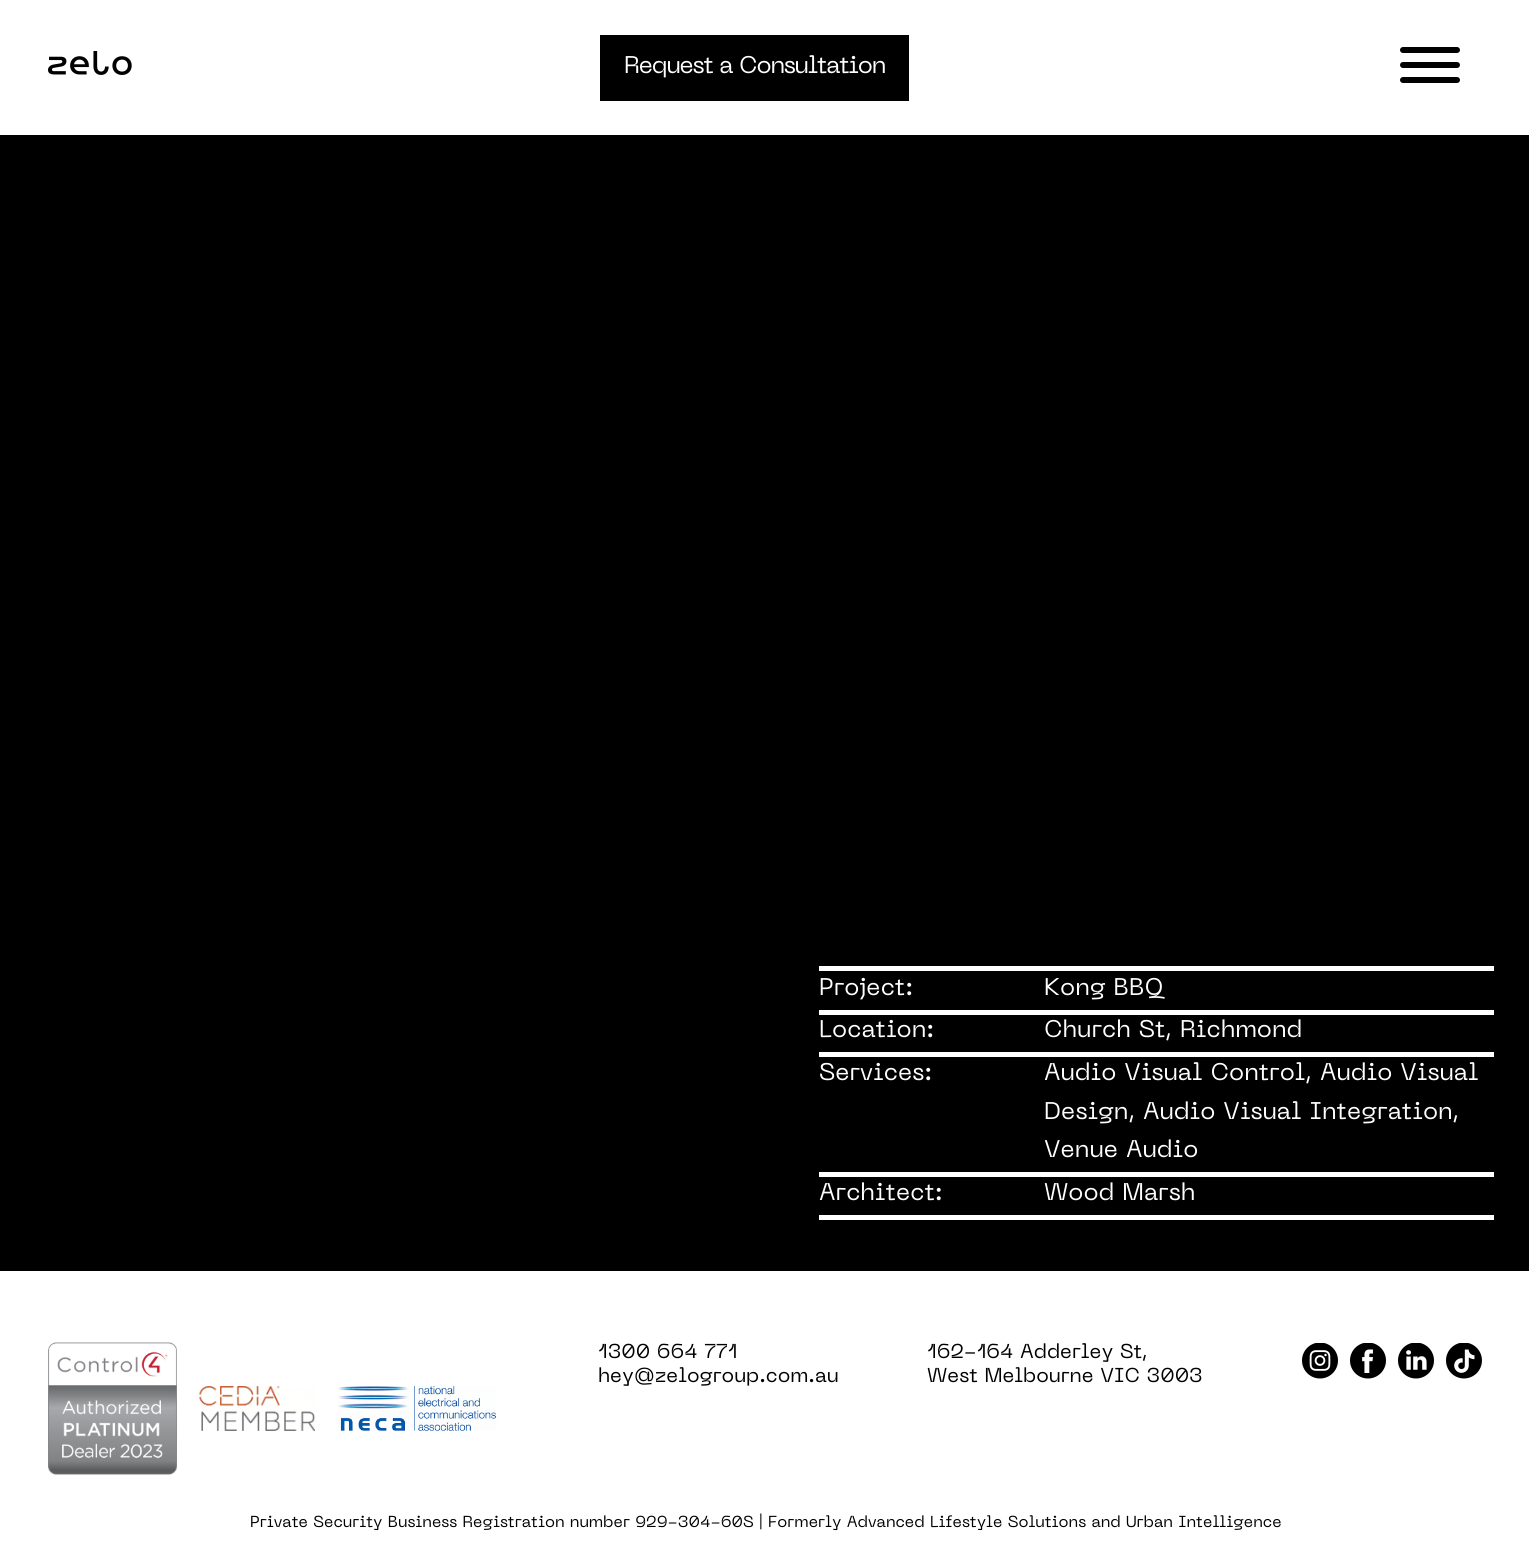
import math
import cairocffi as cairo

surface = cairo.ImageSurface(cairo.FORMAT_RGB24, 1529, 1559)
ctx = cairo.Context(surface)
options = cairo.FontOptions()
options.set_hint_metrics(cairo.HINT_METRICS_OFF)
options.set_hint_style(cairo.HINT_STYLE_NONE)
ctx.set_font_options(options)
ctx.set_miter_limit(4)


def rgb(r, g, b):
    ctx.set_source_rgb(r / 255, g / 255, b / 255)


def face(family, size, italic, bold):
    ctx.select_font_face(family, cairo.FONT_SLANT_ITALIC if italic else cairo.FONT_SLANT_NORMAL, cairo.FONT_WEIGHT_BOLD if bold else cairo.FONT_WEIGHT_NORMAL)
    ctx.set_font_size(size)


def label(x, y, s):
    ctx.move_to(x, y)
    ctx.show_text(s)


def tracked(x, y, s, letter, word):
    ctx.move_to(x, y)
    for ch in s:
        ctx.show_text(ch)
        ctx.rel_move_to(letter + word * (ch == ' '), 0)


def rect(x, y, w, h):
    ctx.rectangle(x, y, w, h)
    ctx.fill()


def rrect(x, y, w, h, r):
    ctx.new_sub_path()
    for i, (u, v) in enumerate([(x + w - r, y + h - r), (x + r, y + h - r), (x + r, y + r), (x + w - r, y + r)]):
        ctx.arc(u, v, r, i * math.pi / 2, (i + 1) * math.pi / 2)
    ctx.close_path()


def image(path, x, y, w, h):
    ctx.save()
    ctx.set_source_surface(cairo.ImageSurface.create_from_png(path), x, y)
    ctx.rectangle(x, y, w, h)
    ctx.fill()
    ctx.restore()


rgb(255, 255, 255)
ctx.paint()
image('image0.png', 48, 51, 84, 24)
rgb(0, 0, 0)
rect(600, 35, 309, 66)
face('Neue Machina', 24, 0, 0)
rgb(255, 255, 255)
tracked(624, 73, 'Request a Consultation', -1.2, 0)
rgb(0, 0, 0)
rrect(1400, 77, 60, 6, 3)
ctx.fill()
rrect(1400, 47, 60, 6, 3)
ctx.fill()
rrect(1400, 62, 60, 6, 3)
ctx.fill()
rect(0, 135, 1529, 1136)
rgb(255, 255, 255)
rect(819, 966, 675, 5)
label(819, 995, 'Project:')
label(1044, 995, 'Kong BBQ')
rect(819, 1010, 675, 5)
label(819, 1037, 'Location:')
label(1044, 1037, 'Church St, Richmond')
rect(819, 1052, 675, 5)
label(819, 1080, 'Services:')
label(1044, 1080, 'Audio Visual Control, Audio Visual')
label(1044, 1119, 'Design, Audio Visual Integration,')
label(1044, 1157, 'Venue Audio')
rect(819, 1172, 675, 5)
label(819, 1200, 'Architect:')
label(1044, 1200, 'Wood Marsh')
rect(819, 1215, 675, 5)
image('image1.png', 48, 1342, 129, 133)
image('image2.png', 199, 1386, 116, 45)
image('image3.png', 338, 1386, 159, 45)
face('Neue Machina', 20, 0, 0)
rgb(0, 0, 0)
label(598, 1358, '1300 664 771')
label(598, 1382, 'hey@zelogroup.com.au')
label(927, 1358, '162-164 Adderley St,')
label(927, 1382, 'West Melbourne VIC 3003')
image('image4.png', 1302, 1343, 36, 36)
image('image5.png', 1350, 1343, 36, 36)
image('image6.png', 1398, 1343, 36, 36)
image('image7.png', 1446, 1343, 36, 36)
face('Neue Machina', 15.85, 0, 0)
label(250, 1527, 'Private Security Business Registration number 929-304-60S | Formerly Advanced Lifestyle Solutions and Urban Intelligence')
surface.write_to_png('render.png')
